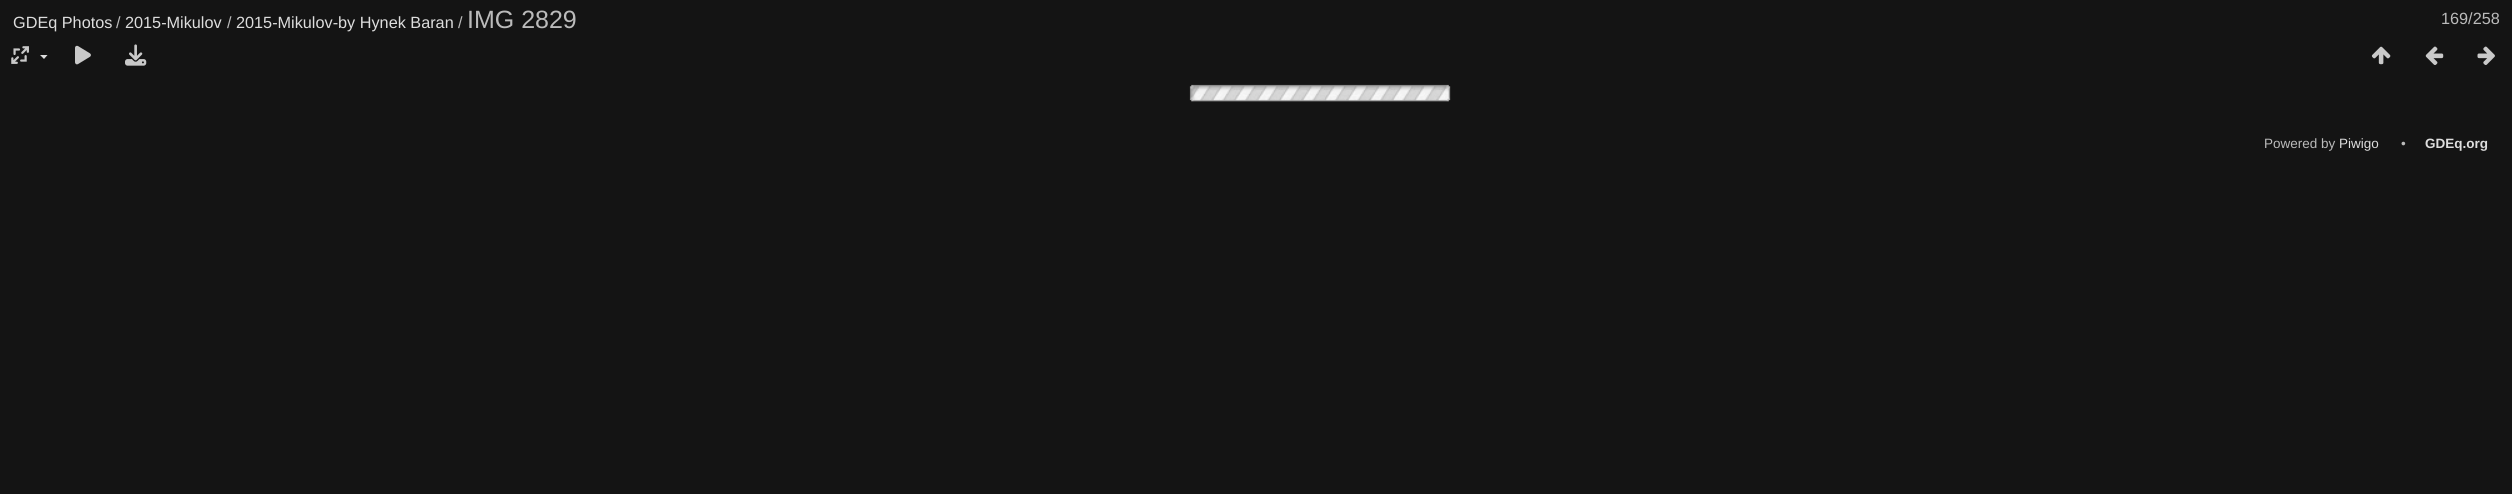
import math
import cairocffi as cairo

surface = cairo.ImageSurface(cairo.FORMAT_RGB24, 2512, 494)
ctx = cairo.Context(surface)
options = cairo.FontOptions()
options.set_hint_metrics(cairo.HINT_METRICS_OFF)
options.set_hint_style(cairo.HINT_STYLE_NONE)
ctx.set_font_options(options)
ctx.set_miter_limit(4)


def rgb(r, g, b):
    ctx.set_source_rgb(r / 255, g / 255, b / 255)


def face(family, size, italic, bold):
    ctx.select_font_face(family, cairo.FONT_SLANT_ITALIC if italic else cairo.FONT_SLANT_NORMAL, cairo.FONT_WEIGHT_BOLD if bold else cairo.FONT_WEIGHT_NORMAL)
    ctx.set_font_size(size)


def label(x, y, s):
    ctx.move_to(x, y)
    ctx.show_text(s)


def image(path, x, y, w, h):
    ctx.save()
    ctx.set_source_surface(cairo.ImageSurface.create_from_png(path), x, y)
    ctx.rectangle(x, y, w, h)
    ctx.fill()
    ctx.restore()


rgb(20, 20, 20)
ctx.paint()
face('Liberation Sans', 16.25, 0, 0)
rgb(221, 221, 221)
label(13, 28, 'GDEq Photos')
rgb(187, 187, 187)
label(116, 28, '/')
rgb(221, 221, 221)
label(125, 28, '2015-Mikulov')
rgb(187, 187, 187)
label(227, 28, '/')
rgb(221, 221, 221)
label(236, 28, '2015-Mikulov-by Hynek Baran')
rgb(187, 187, 187)
label(458, 28, '/')
face('Liberation Sans', 25, 0, 0)
label(467, 28, 'IMG 2829')
face('Liberation Sans', 16.25, 0, 0)
label(2441, 24, '169/258')
image('image0.png', 11, 46, 18, 18)
rgb(221, 221, 221)
ctx.new_path()
ctx.move_to(40, 55)
ctx.line_to(47.5, 55)
ctx.line_to(44, 59)
ctx.close_path()
ctx.fill()
image('image1.png', 75, 45, 16, 20)
image('image2.png', 125, 44, 22, 22)
image('image3.png', 2371, 46, 20, 19)
image('image4.png', 2425, 46, 19, 19)
image('image5.png', 2477, 46, 18, 19)
image('image6.png', 1189, 84, 262, 18)
face('Liberation Sans', 13.5, 0, 0)
rgb(187, 187, 187)
label(2264, 148, 'Powered by')
rgb(221, 221, 221)
label(2339, 148, 'Piwigo')
rgb(187, 187, 187)
label(2401, 148, '•')
face('Liberation Sans', 13.5, 0, 1)
rgb(221, 221, 221)
label(2425, 148, 'GDEq.org')
surface.write_to_png('render.png')
